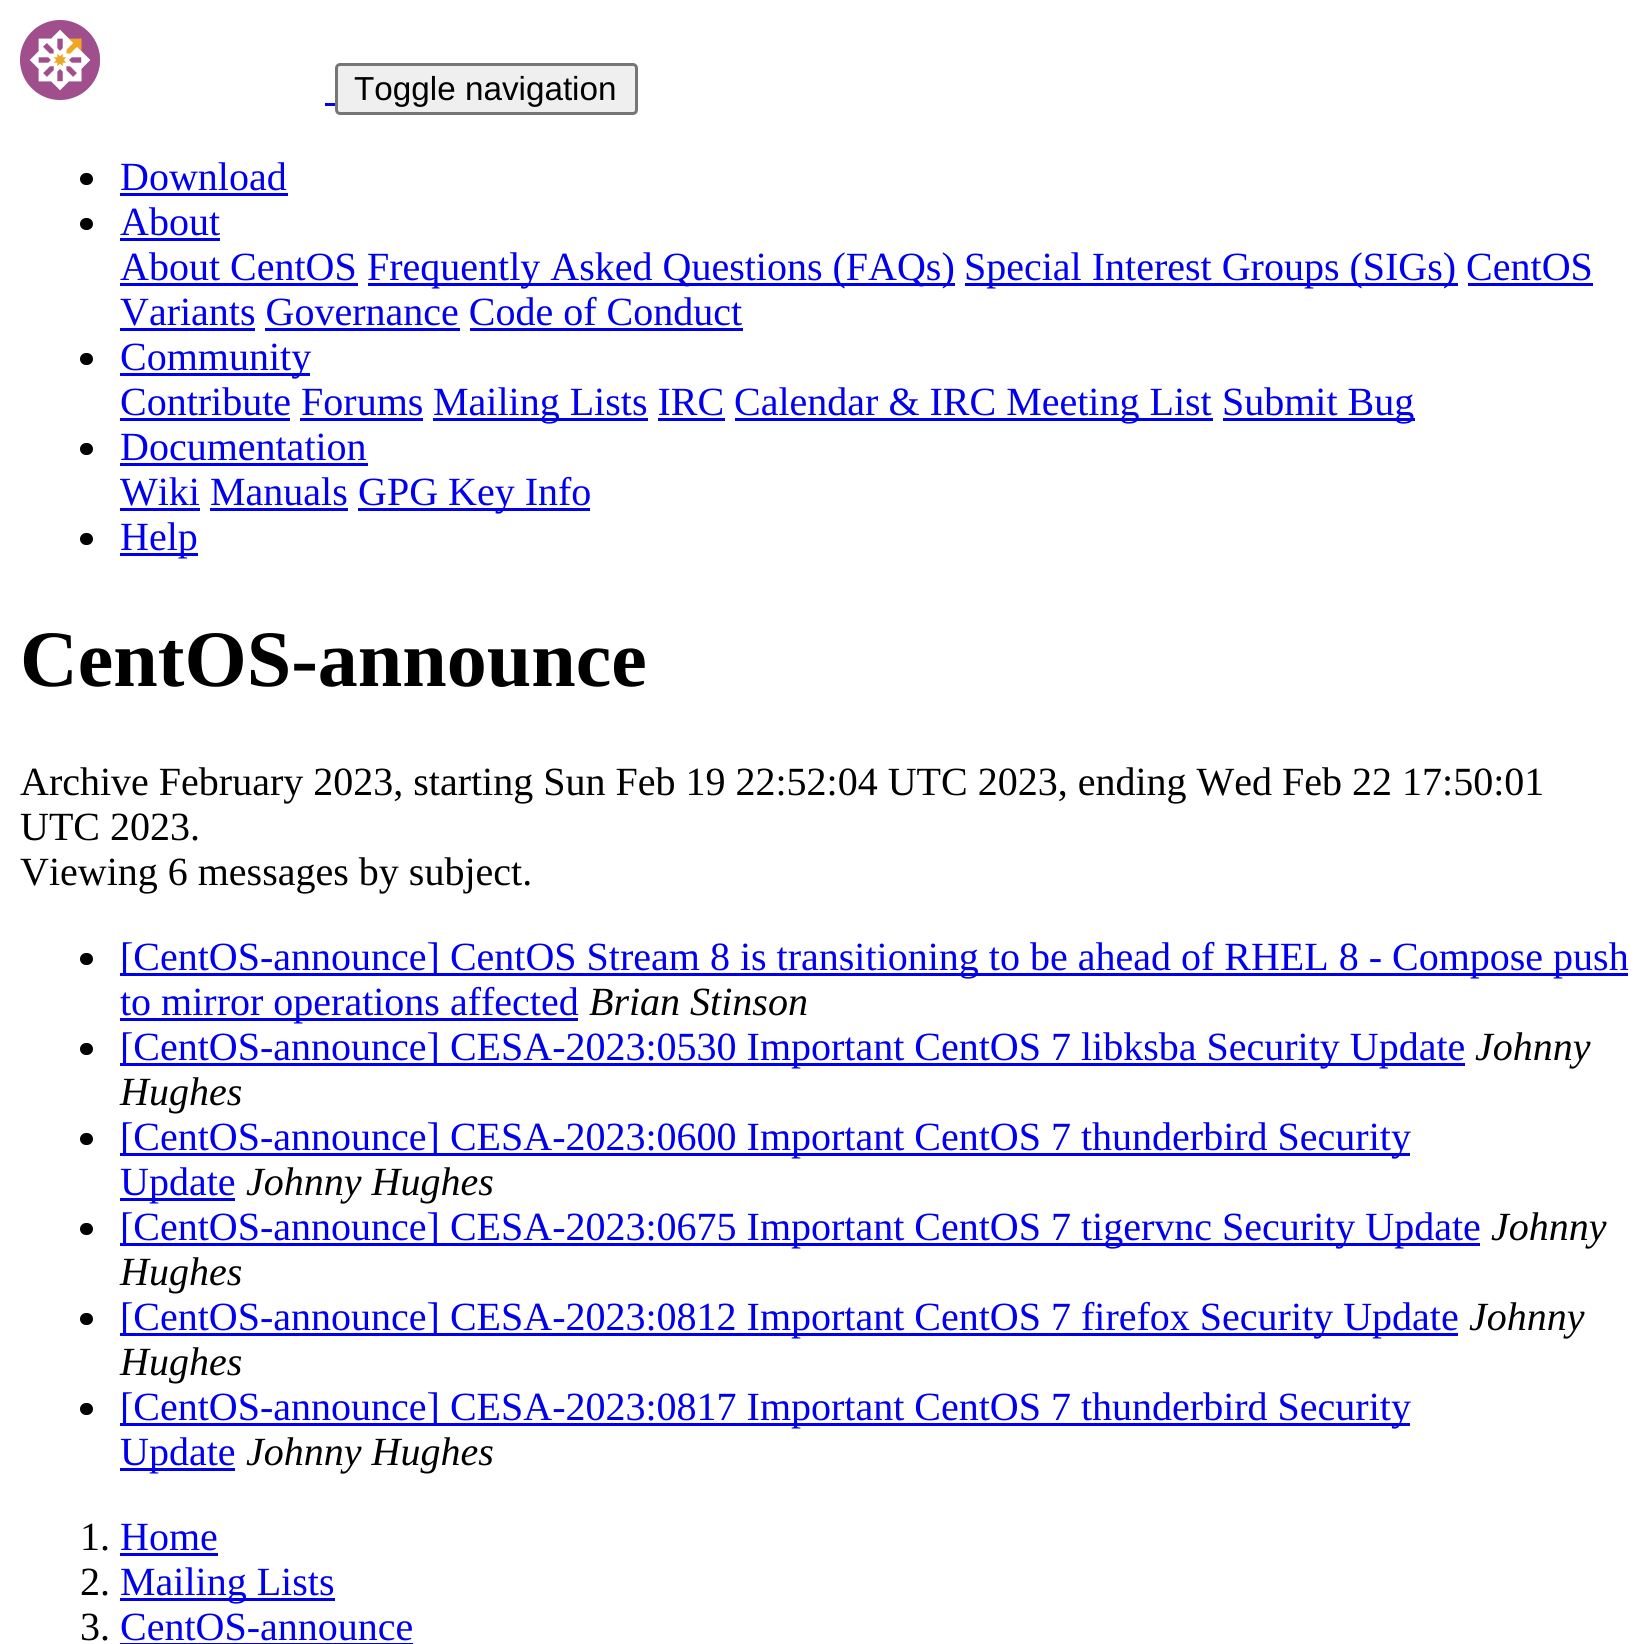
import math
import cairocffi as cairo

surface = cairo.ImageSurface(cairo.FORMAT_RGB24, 1651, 1644)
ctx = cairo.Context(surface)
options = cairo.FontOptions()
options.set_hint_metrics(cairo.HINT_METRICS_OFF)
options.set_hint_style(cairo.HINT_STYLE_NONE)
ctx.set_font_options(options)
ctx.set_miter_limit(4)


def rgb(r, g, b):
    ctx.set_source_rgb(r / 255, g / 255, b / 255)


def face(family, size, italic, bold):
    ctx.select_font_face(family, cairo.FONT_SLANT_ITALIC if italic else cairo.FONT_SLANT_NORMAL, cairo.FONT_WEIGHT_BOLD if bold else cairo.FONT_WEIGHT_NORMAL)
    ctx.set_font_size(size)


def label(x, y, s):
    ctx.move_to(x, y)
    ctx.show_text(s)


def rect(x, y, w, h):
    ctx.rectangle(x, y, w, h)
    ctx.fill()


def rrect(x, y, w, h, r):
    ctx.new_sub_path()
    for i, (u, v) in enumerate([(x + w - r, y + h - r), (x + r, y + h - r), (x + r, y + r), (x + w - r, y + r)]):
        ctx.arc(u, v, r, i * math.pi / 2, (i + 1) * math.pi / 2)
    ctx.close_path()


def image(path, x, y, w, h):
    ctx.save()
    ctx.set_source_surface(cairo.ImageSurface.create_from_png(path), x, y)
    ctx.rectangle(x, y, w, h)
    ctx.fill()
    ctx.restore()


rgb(255, 255, 255)
ctx.paint()
image('image0.png', 20, 20, 80, 80)
rgb(0, 0, 238)
rect(325, 103, 10, 3)
rgb(239, 239, 239)
rrect(336.5, 64.5, 300, 49, 3.5)
ctx.fill_preserve()
rgb(118, 118, 118)
ctx.set_line_width(3)
ctx.stroke()
face('Liberation Sans', 33.25, 0, 0)
rgb(0, 0, 0)
label(354, 100, 'Toggle navigation')
rrect(80, 173, 13, 12, 6)
ctx.fill()
face('Liberation Serif', 40, 0, 0)
rgb(0, 0, 238)
label(120, 190, 'Download')
rect(120, 193, 168, 3)
rgb(0, 0, 0)
rrect(80, 218, 13, 12, 6)
ctx.fill()
rgb(0, 0, 238)
label(120, 235, 'About')
rect(120, 238, 100, 3)
label(120, 280, 'About CentOS')
rect(120, 283, 238, 3)
rect(368, 283, 587, 3)
label(367, 280, 'Frequently Asked Questions (FAQs)')
rect(965, 283, 493, 3)
label(964, 280, 'Special Interest Groups (SIGs) CentOS')
label(120, 325, 'Variants Governance Code of Conduct')
rect(1468, 283, 125, 3)
rect(120, 328, 135, 3)
rect(265, 328, 195, 3)
rect(470, 328, 273, 3)
rgb(0, 0, 0)
rrect(80, 353, 13, 12, 6)
ctx.fill()
rgb(0, 0, 238)
rect(120, 373, 190, 3)
label(120, 370, 'Community')
label(120, 415, 'Contribute Forums')
rect(120, 418, 170, 3)
rect(433, 418, 215, 3)
label(433, 415, 'Mailing Lists IRC')
rect(735, 418, 478, 3)
label(734, 415, 'Calendar & IRC Meeting List')
rect(1223, 418, 192, 3)
label(1222, 415, 'Submit Bug')
rect(300, 418, 123, 3)
rect(658, 418, 67, 3)
rgb(0, 0, 0)
rrect(80, 443, 13, 12, 6)
ctx.fill()
rgb(0, 0, 238)
label(120, 460, 'Documentation')
rect(120, 463, 248, 3)
label(120, 505, 'Wiki Manuals')
rect(120, 508, 80, 3)
rect(358, 508, 232, 3)
label(358, 505, 'GPG Key Info')
rect(210, 508, 138, 3)
rgb(0, 0, 0)
rrect(80, 533, 13, 12, 6)
ctx.fill()
rgb(0, 0, 238)
rect(120, 553, 78, 3)
label(120, 550, 'Help')
face('Liberation Serif', 80, 0, 1)
rgb(0, 0, 0)
label(20, 686, 'CentOS-announce')
face('Liberation Serif', 40, 0, 0)
label(20, 795, 'Archive February 2023, starting Sun Feb 19 22:52:04 UTC 2023, ending Wed Feb 22 17:50:01')
label(20, 840, 'UTC 2023.')
label(20, 885, 'Viewing 6 messages by subject.')
rrect(80, 953, 13, 12, 6)
ctx.fill()
rgb(0, 0, 238)
rect(120, 973, 1508, 3)
label(120, 970, '[CentOS-announce] CentOS Stream 8 is transitioning to be ahead of RHEL 8 - Compose push')
rect(120, 1018, 458, 3)
label(120, 1015, 'to mirror operations affected')
face('Liberation Serif', 40, 1, 0)
rgb(0, 0, 0)
label(589, 1015, 'Brian Stinson')
rrect(80, 1043, 13, 12, 6)
ctx.fill()
rgb(0, 0, 238)
rect(120, 1063, 1345, 3)
face('Liberation Serif', 40, 0, 0)
label(120, 1060, '[CentOS-announce] CESA-2023:0530 Important CentOS 7 libksba Security Update')
face('Liberation Serif', 40, 1, 0)
rgb(0, 0, 0)
label(1475, 1060, 'Johnny')
label(120, 1105, 'Hughes')
rrect(80, 1133, 13, 12, 6)
ctx.fill()
rgb(0, 0, 238)
rect(120, 1153, 1290, 3)
face('Liberation Serif', 40, 0, 0)
label(120, 1150, '[CentOS-announce] CESA-2023:0600 Important CentOS 7 thunderbird Security')
rect(120, 1198, 115, 3)
label(120, 1195, 'Update')
face('Liberation Serif', 40, 1, 0)
rgb(0, 0, 0)
label(246, 1195, 'Johnny Hughes')
rrect(80, 1223, 13, 12, 6)
ctx.fill()
rgb(0, 0, 238)
rect(120, 1243, 1360, 3)
face('Liberation Serif', 40, 0, 0)
label(120, 1240, '[CentOS-announce] CESA-2023:0675 Important CentOS 7 tigervnc Security Update')
face('Liberation Serif', 40, 1, 0)
rgb(0, 0, 0)
label(1491, 1240, 'Johnny')
label(120, 1285, 'Hughes')
rrect(80, 1313, 13, 12, 6)
ctx.fill()
rgb(0, 0, 238)
rect(120, 1333, 1338, 3)
face('Liberation Serif', 40, 0, 0)
label(120, 1330, '[CentOS-announce] CESA-2023:0812 Important CentOS 7 firefox Security Update')
face('Liberation Serif', 40, 1, 0)
rgb(0, 0, 0)
label(1469, 1330, 'Johnny')
label(120, 1375, 'Hughes')
rrect(80, 1403, 13, 12, 6)
ctx.fill()
rgb(0, 0, 238)
rect(120, 1423, 1290, 3)
face('Liberation Serif', 40, 0, 0)
label(120, 1420, '[CentOS-announce] CESA-2023:0817 Important CentOS 7 thunderbird Security')
rect(120, 1468, 115, 3)
label(120, 1465, 'Update')
face('Liberation Serif', 40, 1, 0)
rgb(0, 0, 0)
label(246, 1465, 'Johnny Hughes')
face('Liberation Serif', 40, 0, 0)
label(80, 1550, '1.')
rgb(0, 0, 238)
label(120, 1550, 'Home')
rect(120, 1553, 98, 3)
rgb(0, 0, 0)
label(80, 1595, '2.')
rgb(0, 0, 238)
rect(120, 1598, 215, 3)
label(120, 1595, 'Mailing Lists')
rgb(0, 0, 0)
label(80, 1640, '3.')
rgb(0, 0, 238)
label(120, 1640, 'CentOS-announce')
rect(120, 1643, 293, 1)
surface.write_to_png('render.png')
